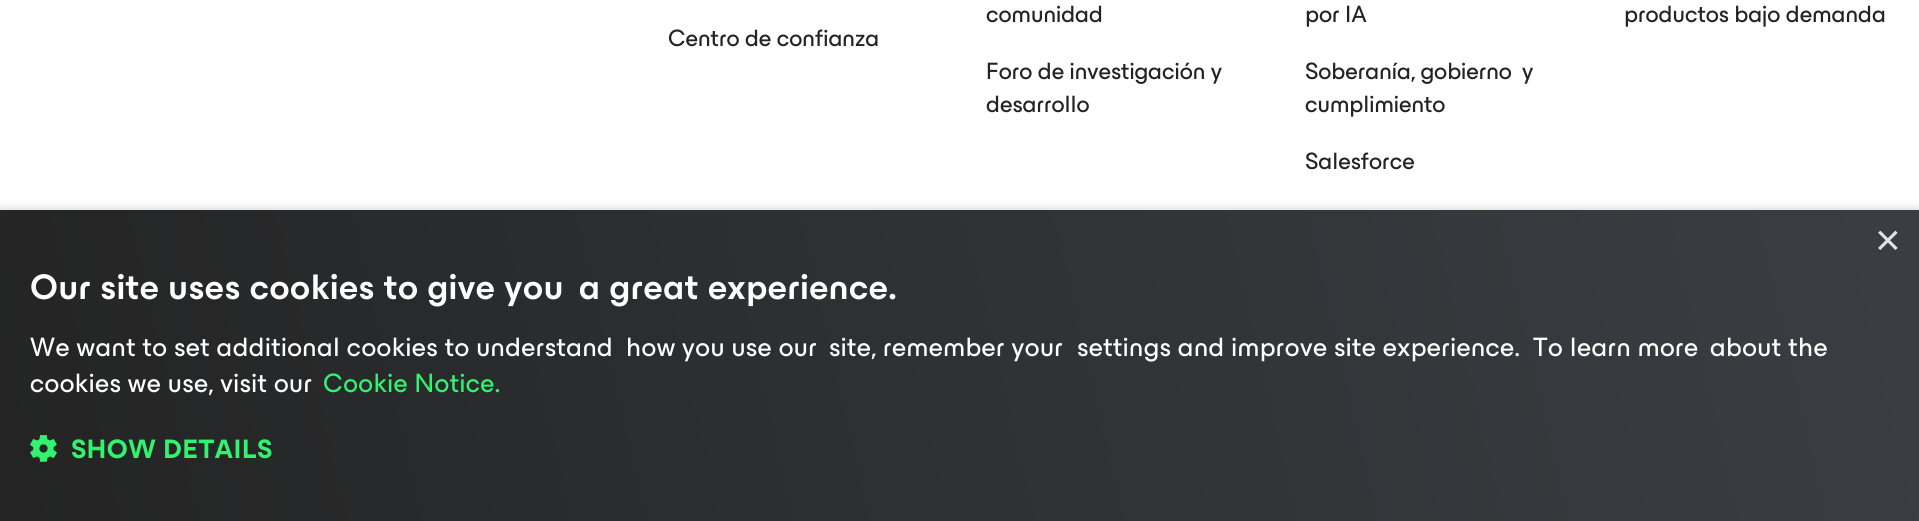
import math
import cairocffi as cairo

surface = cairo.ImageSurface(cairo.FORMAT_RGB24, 1919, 521)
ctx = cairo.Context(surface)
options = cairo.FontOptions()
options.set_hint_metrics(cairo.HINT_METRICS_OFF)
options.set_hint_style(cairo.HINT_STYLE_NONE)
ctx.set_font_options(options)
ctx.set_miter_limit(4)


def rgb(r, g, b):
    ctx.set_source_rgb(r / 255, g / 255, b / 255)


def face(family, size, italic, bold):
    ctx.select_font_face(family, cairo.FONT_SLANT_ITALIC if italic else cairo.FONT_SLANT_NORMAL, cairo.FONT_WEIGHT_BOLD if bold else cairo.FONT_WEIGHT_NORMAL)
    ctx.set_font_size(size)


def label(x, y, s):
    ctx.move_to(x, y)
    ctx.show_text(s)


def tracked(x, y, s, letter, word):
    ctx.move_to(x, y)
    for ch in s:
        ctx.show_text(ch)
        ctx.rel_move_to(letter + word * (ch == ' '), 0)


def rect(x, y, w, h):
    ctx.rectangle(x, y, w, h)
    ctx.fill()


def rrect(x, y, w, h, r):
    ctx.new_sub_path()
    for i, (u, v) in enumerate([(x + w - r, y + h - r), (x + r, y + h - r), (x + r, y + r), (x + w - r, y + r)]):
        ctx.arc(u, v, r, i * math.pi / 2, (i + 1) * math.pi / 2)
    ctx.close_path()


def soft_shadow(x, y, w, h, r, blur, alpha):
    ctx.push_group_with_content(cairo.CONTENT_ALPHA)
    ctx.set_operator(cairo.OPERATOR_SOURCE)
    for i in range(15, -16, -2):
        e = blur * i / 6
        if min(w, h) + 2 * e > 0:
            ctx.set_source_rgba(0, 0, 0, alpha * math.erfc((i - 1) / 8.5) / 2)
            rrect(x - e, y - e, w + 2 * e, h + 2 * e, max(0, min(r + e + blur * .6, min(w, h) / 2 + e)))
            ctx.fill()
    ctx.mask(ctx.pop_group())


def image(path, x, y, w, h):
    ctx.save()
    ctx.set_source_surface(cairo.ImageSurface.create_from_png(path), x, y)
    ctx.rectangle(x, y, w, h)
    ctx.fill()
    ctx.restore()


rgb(255, 255, 255)
ctx.paint()
face('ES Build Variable', 24, 0, 0)
rgb(35, 35, 35)
label(986, 22, 'comunidad')
label(986, 79, 'Foro de investigación y')
label(986, 112, 'desarrollo')
label(1305, 22, 'por IA')
label(1305, 79, 'Soberanía, gobierno')
label(1522, 79, 'y')
label(1305, 112, 'cumplimiento')
label(1305, 169, 'Salesforce')
label(1624, 22, 'productos bajo demanda')
label(668, 46, 'Centro de confianza')
rgb(0, 0, 0)
soft_shadow(2, 213, 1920, 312, 0, 6, 0.35)
gradient = cairo.LinearGradient(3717, -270, -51, 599)
gradient.add_color_stop_rgba(0, 0.314, 0.345, 0.38, 1)
gradient.add_color_stop_rgba(1, 0.137, 0.137, 0.137, 1)
ctx.set_source(gradient)
rect(0, 210, 1919, 311)
face('Liberation Sans', 44, 0, 0)
rgb(225, 226, 227)
label(1875, 255, '×')
face('ES Build Variable SemiBold', 36, 0, 0)
rgb(255, 255, 255)
tracked(30, 299, 'Our site uses cookies to give you', 0.6, 0)
tracked(579, 299, 'a great experience.', 0.6, 0)
face('ES Build Variable', 27, 0, 0)
tracked(30, 356, 'We want to set additional cookies to understand', 0.45, 0)
tracked(626, 356, 'how you use our', 0.45, 0)
tracked(829, 356, 'site, remember your', 0.45, 0)
tracked(1077, 356, 'settings and improve site experience.', 0.45, 0)
tracked(1533, 356, 'To learn more', 0.45, 0)
tracked(1710, 356, 'about the', 0.45, 0)
tracked(30, 392, 'cookies we use, visit our', 0.45, 0)
rgb(50, 242, 111)
tracked(323, 392, 'Cookie Notice.', 0.45, 0)
image('image0.png', 30, 435, 27, 27)
face('ES Build Variable', 27, 0, 1)
tracked(71, 458, 'SHOW DETAILS', 0.6, 0)
surface.write_to_png('render.png')
